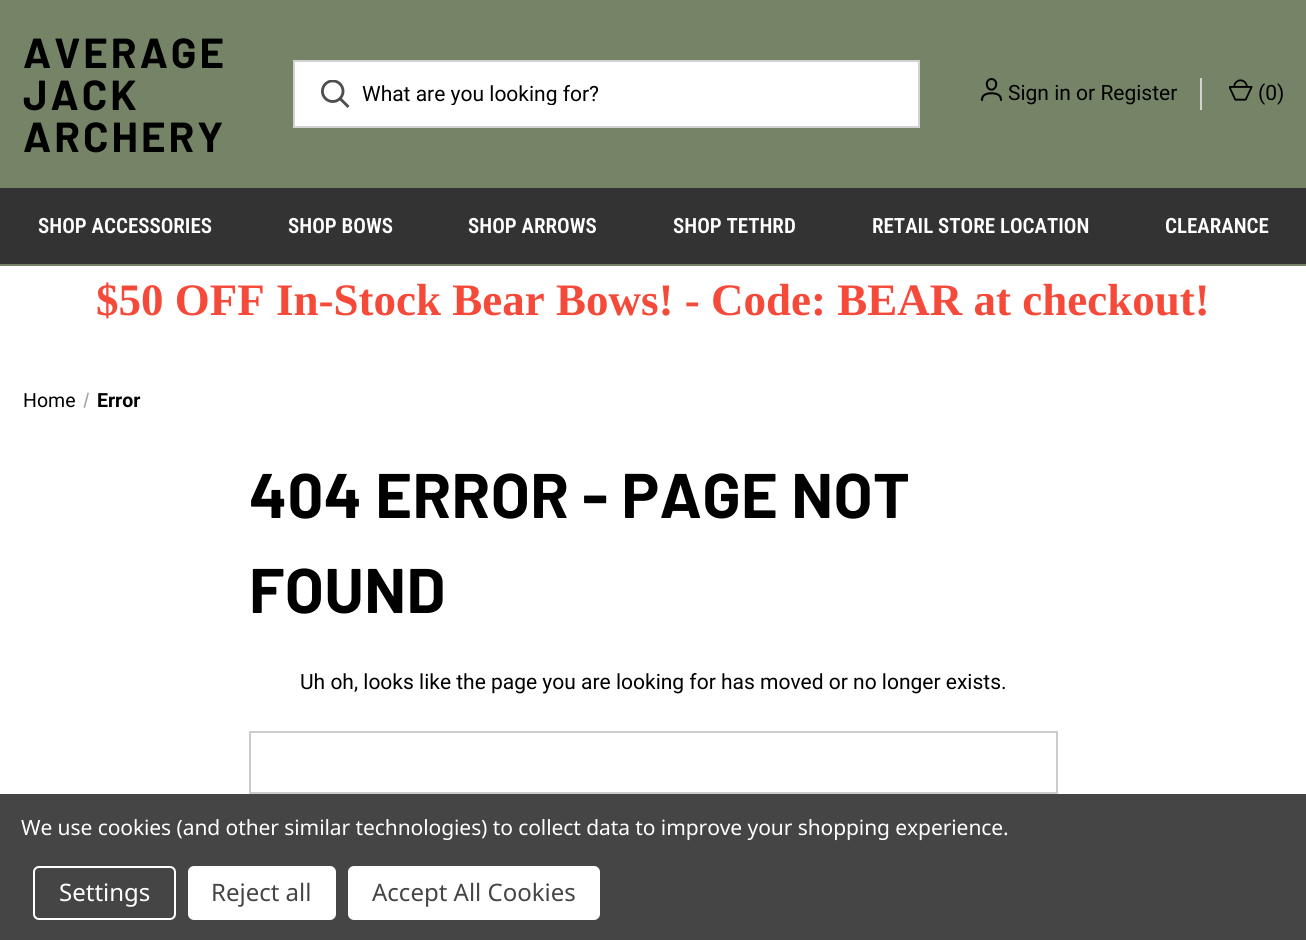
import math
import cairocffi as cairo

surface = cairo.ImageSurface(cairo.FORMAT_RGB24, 1306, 940)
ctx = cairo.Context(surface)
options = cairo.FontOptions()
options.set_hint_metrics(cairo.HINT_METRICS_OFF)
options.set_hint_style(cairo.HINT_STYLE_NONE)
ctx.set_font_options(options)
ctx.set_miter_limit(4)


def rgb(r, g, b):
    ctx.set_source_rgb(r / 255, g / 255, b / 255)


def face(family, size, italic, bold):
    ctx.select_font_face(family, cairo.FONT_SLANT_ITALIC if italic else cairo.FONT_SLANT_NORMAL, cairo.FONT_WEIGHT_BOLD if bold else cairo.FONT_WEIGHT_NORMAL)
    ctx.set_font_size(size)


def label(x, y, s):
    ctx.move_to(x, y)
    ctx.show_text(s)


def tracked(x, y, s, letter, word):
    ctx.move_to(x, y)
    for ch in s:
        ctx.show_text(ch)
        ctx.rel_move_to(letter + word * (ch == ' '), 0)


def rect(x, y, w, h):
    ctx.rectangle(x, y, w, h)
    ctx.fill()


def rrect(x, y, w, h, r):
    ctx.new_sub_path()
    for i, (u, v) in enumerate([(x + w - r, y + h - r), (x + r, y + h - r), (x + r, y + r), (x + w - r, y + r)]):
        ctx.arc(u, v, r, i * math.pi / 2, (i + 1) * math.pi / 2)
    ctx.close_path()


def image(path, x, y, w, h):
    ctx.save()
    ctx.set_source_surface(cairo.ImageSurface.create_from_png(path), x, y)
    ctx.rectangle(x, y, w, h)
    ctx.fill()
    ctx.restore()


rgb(255, 255, 255)
ctx.paint()
rgb(117, 132, 103)
rect(0, 0, 1306, 188)
face('Barlow', 42, 0, 1)
rgb(0, 0, 0)
tracked(23, 68, 'AVERAGE', 3, 0)
tracked(23, 110, 'JACK', 3, 0)
tracked(23, 152, 'ARCHERY', 3, 0)
rgb(255, 255, 255)
ctx.rectangle(294, 61, 625, 66)
ctx.fill_preserve()
rgb(210, 210, 210)
ctx.stroke()
image('image0.png', 321, 80, 29, 28)
ctx.save()
ctx.rectangle(362, 81, 535, 24)
ctx.clip()
face('Roboto', 21, 0, 0)
rgb(0, 0, 0)
label(362, 101, 'What are you looking for?')
ctx.restore()
image('image1.png', 980, 78, 23, 23)
face('Roboto', 21, 0, 0)
rgb(0, 0, 0)
label(1008, 100, 'Sign in or Register')
rgb(210, 210, 210)
rect(1200, 78, 2, 32)
image('image2.png', 1229, 79, 24, 22)
rgb(0, 0, 0)
label(1258, 100, '(0)')
rgb(51, 51, 51)
rect(0, 188, 1306, 76)
rgb(117, 132, 103)
rect(0, 264, 1306, 2)
face('Roboto Condensed SemiBold', 21, 0, 0)
rgb(255, 255, 255)
label(38, 233, 'SHOP ACCESSORIES')
label(288, 233, 'SHOP BOWS')
label(468, 233, 'SHOP ARROWS')
label(673, 233, 'SHOP TETHRD')
label(872, 233, 'RETAIL STORE LOCATION')
label(1165, 233, 'CLEARANCE')
face('Liberation Serif', 45, 0, 1)
rgb(245, 74, 58)
label(96, 315, '$50 OFF In-Stock Bear Bows! - Code: BEAR at checkout!')
face('Roboto', 19.5, 0, 0)
rgb(0, 0, 0)
label(23, 407, 'Home')
rgb(163, 163, 163)
ctx.new_path()
ctx.move_to(87.5, 392.5)
ctx.line_to(89, 393)
ctx.line_to(85, 408)
ctx.line_to(83.5, 407.5)
ctx.close_path()
ctx.fill()
face('Roboto', 19.5, 0, 1)
rgb(0, 0, 0)
label(97, 407, 'Error')
face('Barlow', 63, 0, 1)
tracked(249, 518, '404 ERROR - PAGE NOT', 0.4, 0)
tracked(249, 613, 'FOUND', 0.4, 0)
face('Roboto', 21, 0, 0)
label(300, 689, 'Uh oh, looks like the page you are looking for has moved or no longer exists.')
ctx.rectangle(250, 732, 807, 61)
rgb(204, 204, 204)
ctx.stroke()
rgb(69, 69, 69)
rect(0, 794, 1306, 146)
face('Noto Sans', 21, 0, 0)
rgb(255, 255, 255)
tracked(21, 835, 'We use cookies (and other similar technologies) to collect data to improve your shopping experience.', -0.08, 0)
rrect(34, 867, 141, 52, 5)
ctx.stroke()
face('Noto Sans', 24, 0, 0)
label(59, 901, 'Settings')
rrect(188, 866, 148, 54, 6)
ctx.fill()
rgb(69, 69, 69)
label(211, 901, 'Reject all')
rgb(255, 255, 255)
rrect(348, 866, 252, 54, 6)
ctx.fill()
rgb(69, 69, 69)
label(372, 901, 'Accept All Cookies')
surface.write_to_png('render.png')
